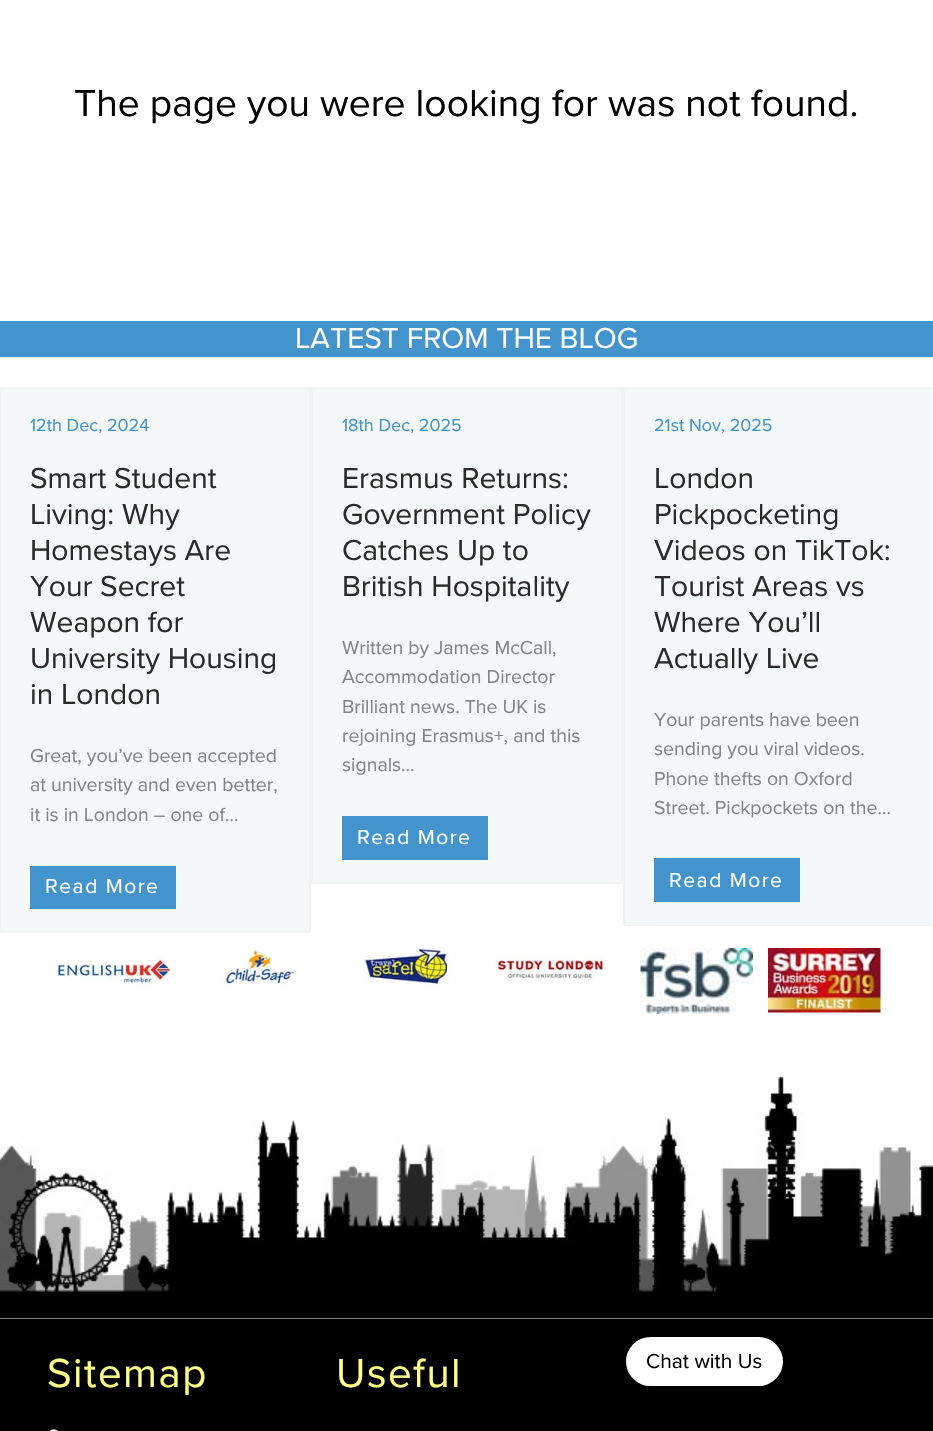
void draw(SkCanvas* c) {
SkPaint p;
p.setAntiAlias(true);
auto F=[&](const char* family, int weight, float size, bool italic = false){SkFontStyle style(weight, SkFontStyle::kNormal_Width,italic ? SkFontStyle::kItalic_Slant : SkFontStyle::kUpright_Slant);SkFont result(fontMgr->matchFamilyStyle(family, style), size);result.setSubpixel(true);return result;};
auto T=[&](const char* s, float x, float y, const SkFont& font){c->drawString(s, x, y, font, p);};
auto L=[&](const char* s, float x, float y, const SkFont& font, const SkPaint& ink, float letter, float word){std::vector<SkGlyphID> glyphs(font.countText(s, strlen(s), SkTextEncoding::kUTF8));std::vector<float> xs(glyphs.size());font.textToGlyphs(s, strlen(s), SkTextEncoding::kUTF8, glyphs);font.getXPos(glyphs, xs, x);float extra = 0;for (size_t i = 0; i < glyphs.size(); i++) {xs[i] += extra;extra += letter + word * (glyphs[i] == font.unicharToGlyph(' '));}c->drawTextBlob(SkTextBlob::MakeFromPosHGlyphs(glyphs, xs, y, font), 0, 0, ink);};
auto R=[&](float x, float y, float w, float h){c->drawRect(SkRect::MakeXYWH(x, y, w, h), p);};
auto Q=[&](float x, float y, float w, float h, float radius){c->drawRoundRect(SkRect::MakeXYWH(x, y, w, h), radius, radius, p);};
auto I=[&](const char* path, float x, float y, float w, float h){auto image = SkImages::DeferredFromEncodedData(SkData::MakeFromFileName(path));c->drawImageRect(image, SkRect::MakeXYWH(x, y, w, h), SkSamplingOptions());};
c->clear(0xffffffff);
auto f1 = F("Proxima Nova",400,39);
p.setColor(0xff000000);
T("The page you were looking for was not found.",74,116,f1);
p.setColor(0xff4393cd);
R(0,321,933,36);
auto f2 = F("Proxima Nova",400,30);
p.setColor(0xffffffff);
T("LATEST FROM THE BLOG",295,348,f2);
p.setColor(0xfff5f8f9);
c->drawRect(SkRect::MakeXYWH(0,388,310,544),p);
p.setStroke(true);
p.setStrokeWidth(2);
p.setColor(0xfff2f2f2);
c->drawRect(SkRect::MakeXYWH(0,388,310,544),p);
auto f3 = F("Proxima Nova",400,18);
p.setStroke(false);
p.setColor(0xff4393cd);
T("12th Dec, 2024",30,431,f3);
p.setColor(0xff2a2a2a);
T("Smart Student",30,488,f2);
T("Living: Why",30,524,f2);
T("Homestays Are",30,560,f2);
T("Your Secret",30,596,f2);
T("Weapon for",30,632,f2);
T("University Housing",30,668,f2);
T("in London",30,704,f2);
auto f4 = F("Proxima Nova",400,19.5);
p.setColor(0xff808587);
T("Great, you’ve been accepted",30,762,f4);
T("at university and even better,",30,791,f4);
T("it is in London – one of…",30,821,f4);
p.setColor(0xff4393cd);
R(30,866,146,43);
auto f5 = F("Proxima Nova",400,21);
p.setColor(0xffffffff);
L("Read More",45,893,f5,p,1.5,0);
p.setColor(0xfff5f8f9);
c->drawRect(SkRect::MakeXYWH(312,388,310,495),p);
p.setStroke(true);
p.setColor(0xfff2f2f2);
c->drawRect(SkRect::MakeXYWH(312,388,310,495),p);
p.setStroke(false);
p.setColor(0xff4393cd);
T("18th Dec, 2025",342,431,f3);
p.setColor(0xff2a2a2a);
T("Erasmus Returns:",342,488,f2);
T("Government Policy",342,524,f2);
T("Catches Up to",342,560,f2);
T("British Hospitality",342,596,f2);
p.setColor(0xff808587);
T("Written by James McCall,",342,654,f4);
T("Accommodation Director",342,683,f4);
T("Brilliant news. The UK is",342,713,f4);
T("rejoining Erasmus+, and this",342,742,f4);
T("signals…",342,771,f4);
p.setColor(0xff4393cd);
R(342,816,146,44);
p.setColor(0xffffffff);
L("Read More",357,844,f5,p,1.5,0);
p.setColor(0xfff5f8f9);
c->drawRect(SkRect::MakeXYWH(624,388,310,537),p);
p.setStroke(true);
p.setColor(0xfff2f2f2);
c->drawRect(SkRect::MakeXYWH(624,388,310,537),p);
p.setStroke(false);
p.setColor(0xff4393cd);
T("21st Nov, 2025",654,431,f3);
p.setColor(0xff2a2a2a);
T("London",654,488,f2);
T("Pickpocketing",654,524,f2);
T("Videos on TikTok:",654,560,f2);
T("Tourist Areas vs",654,596,f2);
T("Where You’ll",654,632,f2);
T("Actually Live",654,668,f2);
p.setColor(0xff808587);
T("Your parents have been",654,726,f4);
T("sending you viral videos.",654,755,f4);
T("Phone thefts on Oxford",654,785,f4);
T("Street. Pickpockets on the…",654,814,f4);
p.setColor(0xff4393cd);
R(654,858,146,44);
p.setColor(0xffffffff);
L("Read More",669,887,f5,p,1.5,0);
I("1.png",58,956,113,30);
I("2.png",217,948,81,38);
I("3.png",362,948,95,38);
I("4.png",495,955,110,26);
I("5.png",640,948,113,66);
I("6.png",768,948,113,65);
I("7.png",0,1076,933,243);
p.setColor(0xff000000);
R(0,1319,933,112);
auto f6 = F("Proxima Nova",400,42);
p.setColor(0xfffeff85);
L("Sitemap",47,1387,f6,p,1.5,0);
I("8.png",50,1429,8,2);
L("Useful",336,1387,f6,p,1.5,0);
p.setColor(0xffffffff);
Q(626,1337,157,49,24.5);
p.setColor(0xff000000);
T("Chat with Us",646,1368,f5);
}
